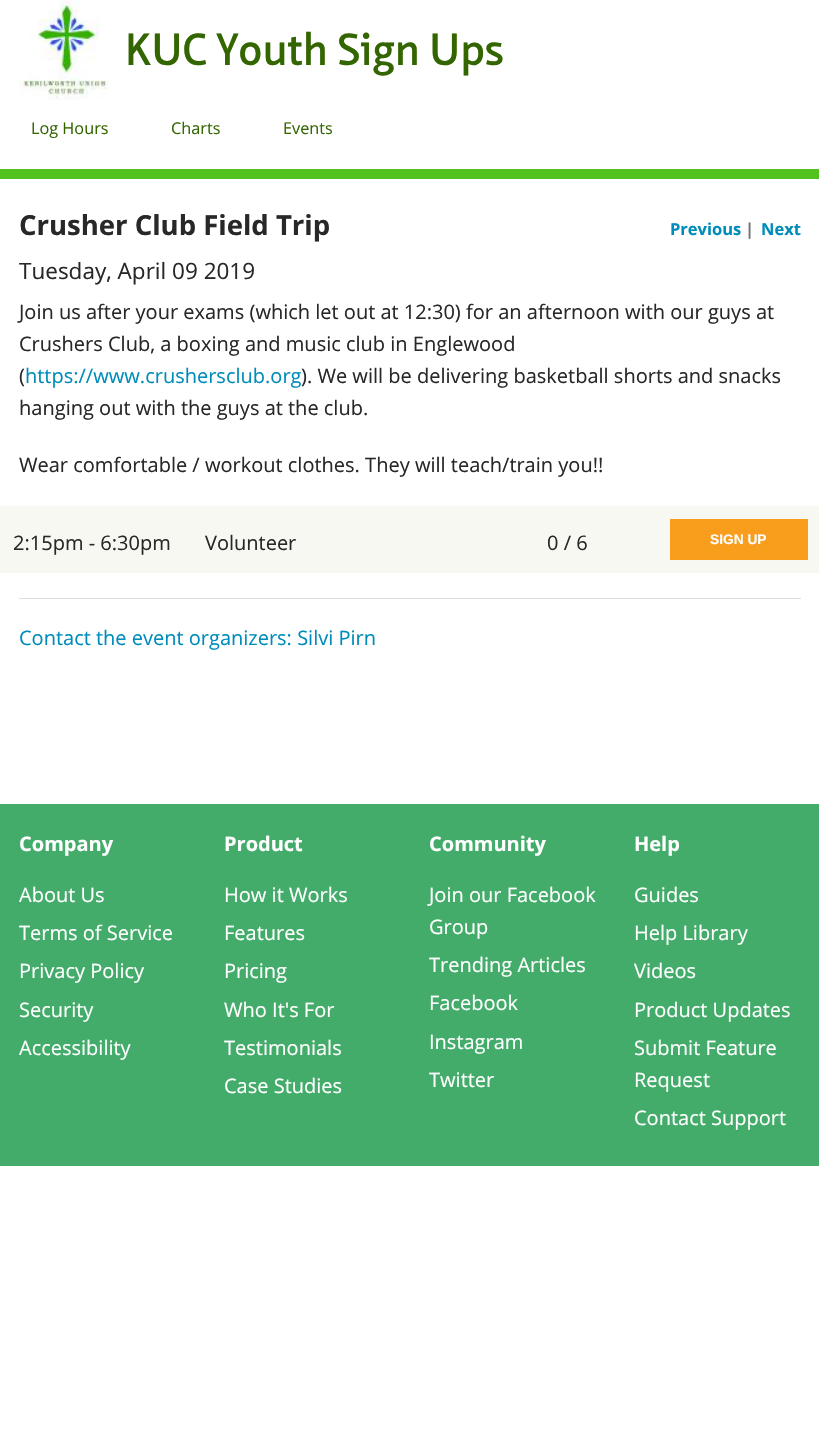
void draw(SkCanvas* c) {
SkPaint p;
p.setAntiAlias(true);
auto F=[&](const char* family, int weight, float size, bool italic = false){SkFontStyle style(weight, SkFontStyle::kNormal_Width,italic ? SkFontStyle::kItalic_Slant : SkFontStyle::kUpright_Slant);SkFont result(fontMgr->matchFamilyStyle(family, style), size);result.setSubpixel(true);return result;};
auto T=[&](const char* s, float x, float y, const SkFont& font){c->drawString(s, x, y, font, p);};
auto R=[&](float x, float y, float w, float h){c->drawRect(SkRect::MakeXYWH(x, y, w, h), p);};
auto I=[&](const char* path, float x, float y, float w, float h){auto image = SkImages::DeferredFromEncodedData(SkData::MakeFromFileName(path));c->drawImageRect(image, SkRect::MakeXYWH(x, y, w, h), SkSamplingOptions());};
c->clear(0xffffffff);
I("1.png",19,0,90,100);
auto f1 = F("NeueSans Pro",600,43.75);
p.setColor(0xff336600);
T("KUC Youth Sign Ups",125,65,f1);
auto f2 = F("Open Sans",400,16.25);
T("Log Hours",31,134,f2);
T("Charts",171,134,f2);
T("Events",283,134,f2);
p.setColor(0xff51c21e);
R(0,169,819,10);
auto f3 = F("Open Sans",700,27.5);
p.setColor(0xff282828);
T("Crusher Club Field Trip",19,235,f3);
auto f4 = F("Open Sans",700,16.5);
p.setColor(0xff008cba);
T("Previous",670,235,f4);
p.setColor(0xff6f6f6f);
T("|",745,235,f4);
p.setColor(0xff008cba);
T("Next",761,235,f4);
auto f5 = F("Open Sans",400,22.5);
p.setColor(0xff282828);
T("Tuesday, April 09 2019",19,279,f5);
auto f6 = F("Open Sans",400,20);
T("Join us after your exams (which let out at 12:30) for an afternoon with our guys at",19,319,f6);
T("Crushers Club, a boxing and music club in Englewood",19,351,f6);
T("(",19,383,f6);
p.setColor(0xff008cba);
T("https://www.crushersclub.org",25,383,f6);
p.setColor(0xff282828);
T("). We will be delivering basketball shorts and snacks",301,383,f6);
T("hanging out with the guys at the club.",19,415,f6);
T("Wear comfortable / workout clothes. They will teach/train you!!",19,472,f6);
p.setColor(0xfff8f8f2);
R(0,506,819,67);
p.setColor(0xff282828);
T("2:15pm - 6:30pm",13,550,f6);
T("Volunteer",205,550,f6);
T("0 / 6",547,550,f6);
p.setColor(0xfff99d1c);
R(670,519,138,41);
auto f7 = F("Liberation Sans",700,13.75);
p.setColor(0xffffffff);
T("SIGN UP",710,544,f7);
p.setColor(0xffdddddd);
R(19,598,782,1);
p.setColor(0xff008cba);
T("Contact the event organizers: Silvi Pirn",19,645,f6);
p.setColor(0xff43ac6a);
R(0,804,819,362);
auto f8 = F("Open Sans",700,20);
p.setColor(0xffffffff);
T("Company",19,851,f8);
T("About Us",19,902,f6);
T("Terms of Service",19,940,f6);
T("Privacy Policy",19,978,f6);
T("Security",19,1017,f6);
T("Accessibility",19,1055,f6);
T("Product",224,851,f8);
T("How it Works",224,902,f6);
T("Features",224,940,f6);
T("Pricing",224,978,f6);
T("Who It's For",224,1017,f6);
T("Testimonials",224,1055,f6);
T("Case Studies",224,1093,f6);
T("Community",429,851,f8);
T("Join our Facebook",429,902,f6);
T("Group",429,934,f6);
T("Trending Articles",429,972,f6);
T("Facebook",429,1010,f6);
T("Instagram",429,1049,f6);
T("Twitter",429,1087,f6);
T("Help",634,851,f8);
T("Guides",634,902,f6);
T("Help Library",634,940,f6);
T("Videos",634,978,f6);
T("Product Updates",634,1017,f6);
T("Submit Feature",634,1055,f6);
T("Request",634,1087,f6);
T("Contact Support",634,1125,f6);
}
